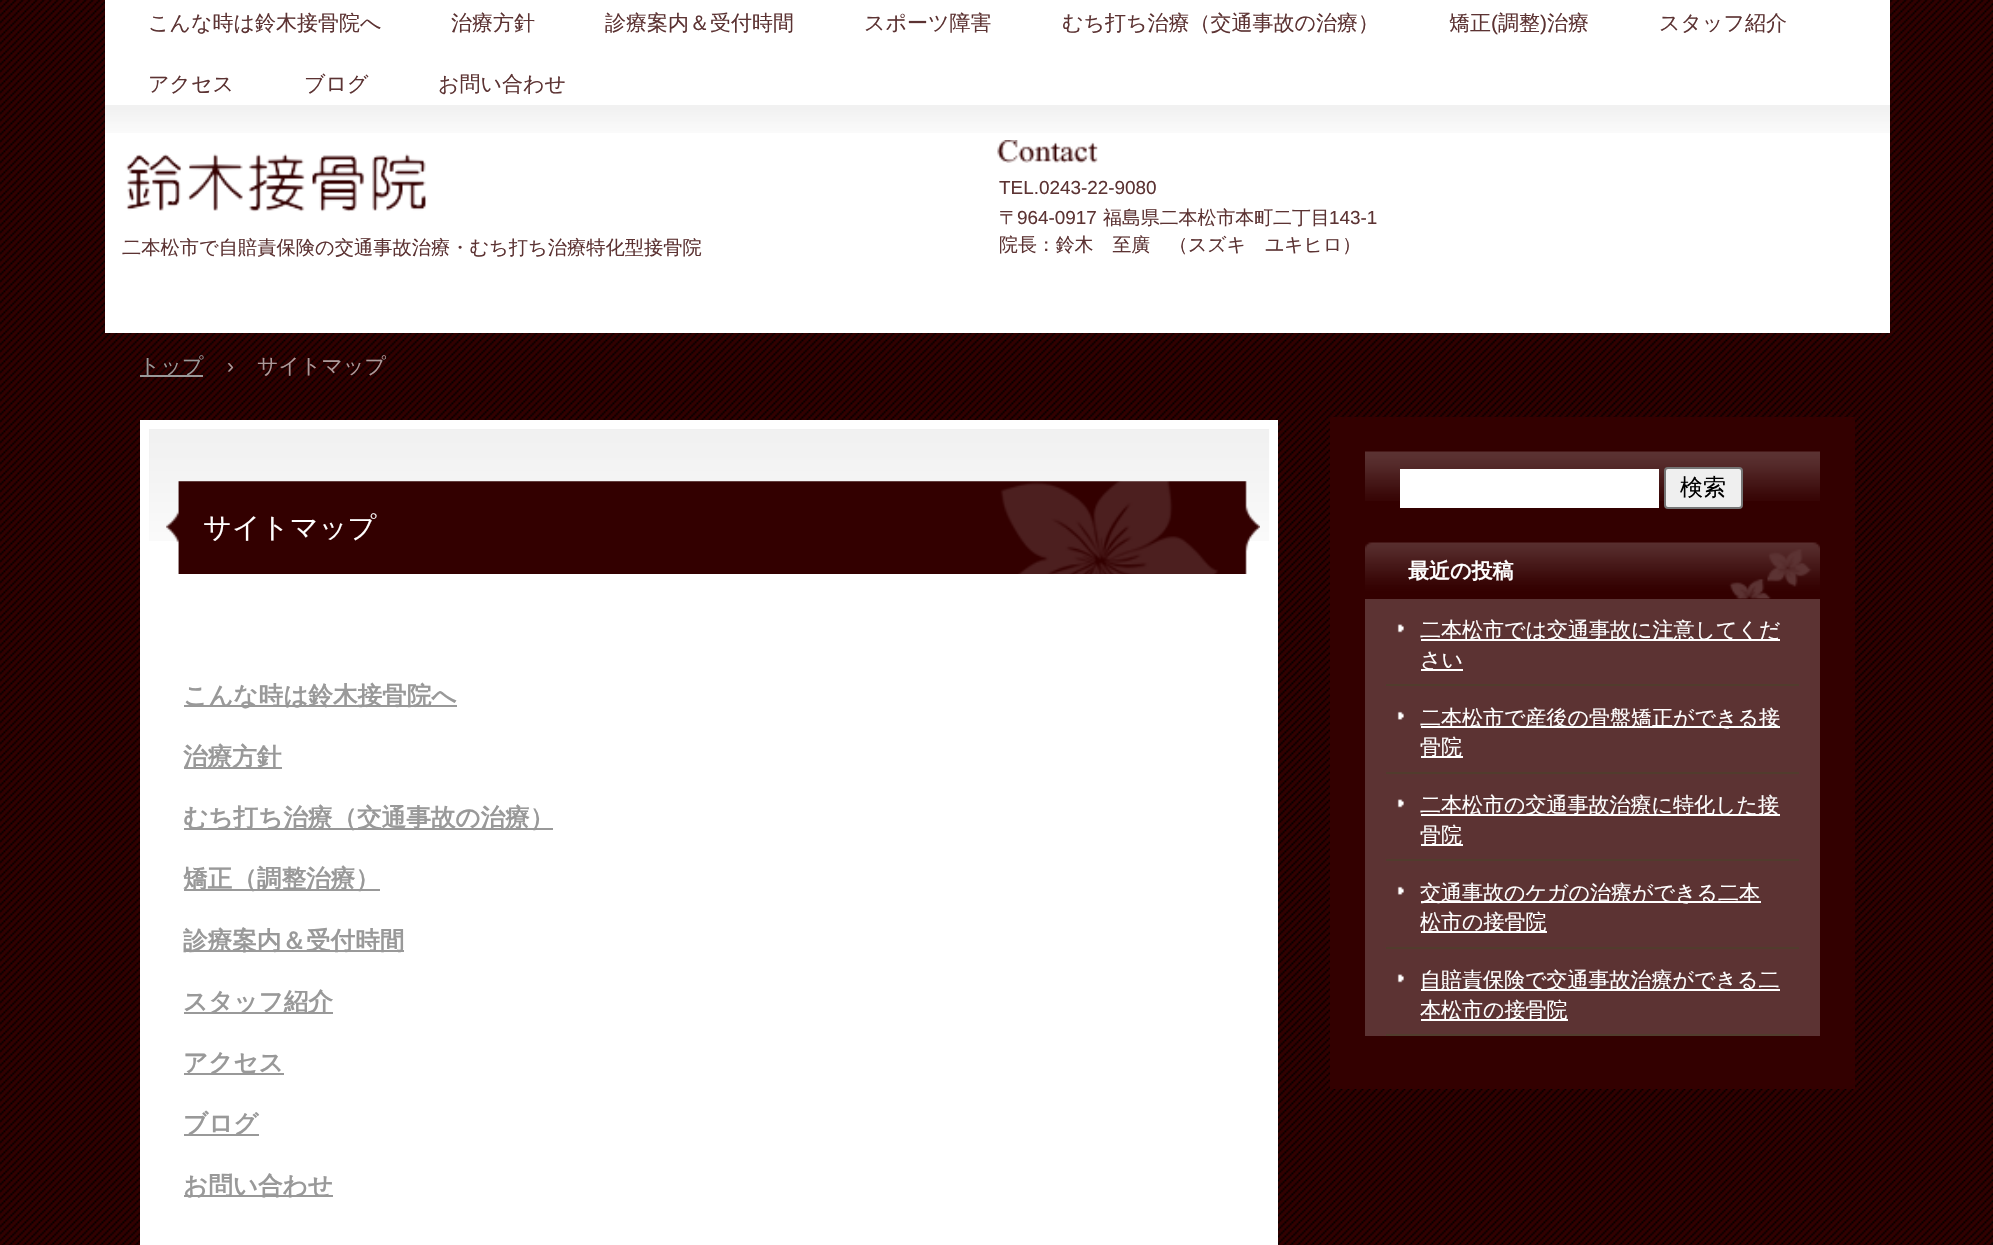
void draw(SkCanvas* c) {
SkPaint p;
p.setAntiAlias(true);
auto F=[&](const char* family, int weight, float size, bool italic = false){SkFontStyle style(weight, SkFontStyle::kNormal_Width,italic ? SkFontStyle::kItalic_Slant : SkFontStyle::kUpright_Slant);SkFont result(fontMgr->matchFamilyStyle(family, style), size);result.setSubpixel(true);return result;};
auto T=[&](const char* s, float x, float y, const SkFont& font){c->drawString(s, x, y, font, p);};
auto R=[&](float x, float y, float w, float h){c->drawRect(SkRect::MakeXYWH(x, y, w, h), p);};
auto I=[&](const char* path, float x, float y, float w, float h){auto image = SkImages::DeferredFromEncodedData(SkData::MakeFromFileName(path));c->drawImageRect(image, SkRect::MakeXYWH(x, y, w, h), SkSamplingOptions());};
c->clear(0xffffffff);
I("1.png",0,0,1993,1245);
p.setColor(0xffffffff);
R(105,0,1785,333);
I("2.png",105,105,1785,28);
auto f1 = F("WenQuanYi Zen Hei",500,21);
p.setColor(0xff5c3333);
T("こんな時は鈴木接骨院へ",148,30,f1);
T("治療方針",451,30,f1);
T("診療案内＆受付時間",605,30,f1);
T("スポーツ障害",864,30,f1);
T("むち打ち治療（交通事故の治療）",1062,30,f1);
T("矯正",1449,30,f1);
auto f2 = F("Liberation Sans",400,21);
T("(",1491,30,f2);
T("調整",1498,30,f1);
T(")",1540,30,f2);
T("治療",1547,30,f1);
T("スタッフ紹介",1659,30,f1);
T("アクセス",148,91,f1);
T("ブログ",304,91,f1);
T("お問い合わせ",438,91,f1);
I("3.png",125,153,302,59);
auto f3 = F("WenQuanYi Zen Hei",500,19.25);
T("二本松市で自賠責保険の交通事故治療・むち打ち治療特化型接骨院",122,254,f3);
I("4.png",997,140,101,23);
auto f4 = F("Liberation Sans",400,18.9);
T("TEL.0243-22-9080",999,194,f4);
auto f5 = F("WenQuanYi Zen Hei",500,18.9);
T("〒",999,224,f5);
T("964-0917",1017,224,f4);
T("福島県二本松市本町二丁目",1103,224,f5);
T("143-1",1329,224,f4);
T("院長：鈴木　至廣　（スズキ　ユキヒロ）",999,251,f5);
p.setColor(0xff999999);
R(140,375,63,2);
T("トップ",139,373,f1);
p.setColor(0xffac9999);
T("›",227,373,f2);
T("サイトマップ",257,373,f1);
p.setColor(0xffffffff);
R(149,541,1120,704);
I("5.png",149,429,1120,112);
p.setStroke(true);
p.setStrokeWidth(9);
c->drawRect(SkRect::MakeXYWH(144.5,424.5,1129,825),p);
I("6.png",166,481,1094,93);
auto f6 = F("WenQuanYi Zen Hei",500,28.25);
p.setStroke(false);
T("サイトマップ",203,537,f6);
p.setColor(0xff999999);
R(184,705,273,2);
auto f7 = F("WenQuanYi Zen Hei",700,24.6);
T("こんな時は鈴木接骨院へ",183,704,f7);
R(184,767,98,2);
T("治療方針",183,765,f7);
R(184,828,369,2);
T("むち打ち治療（交通事故の治療）",183,826,f7);
R(184,889,196,2);
T("矯正（調整治療）",183,887,f7);
R(184,950,220,2);
T("診療案内＆受付時間",183,949,f7);
R(184,1012,149,2);
T("スタッフ紹介",183,1010,f7);
R(184,1073,100,2);
T("アクセス",183,1071,f7);
R(184,1134,75,2);
T("ブログ",183,1132,f7);
R(184,1195,149,2);
T("お問い合わせ",183,1194,f7);
p.setColor(0xff330000);
R(1330,417,525,672);
I("7.png",1365,451,455,50);
p.setColor(0xffffffff);
R(1400,469,259,39);
p.setColor(0xffefefef);
c->drawRoundRect(SkRect::MakeXYWH(1665,468,77,40),3,3,p);
p.setStroke(true);
p.setStrokeWidth(2);
p.setColor(0xff767676);
c->drawRoundRect(SkRect::MakeXYWH(1665,468,77,40),3,3,p);
auto f8 = F("WenQuanYi Zen Hei",500,23);
p.setStroke(false);
p.setColor(0xff000000);
T("検索",1680,495,f8);
I("8.png",1365,542,455,57);
auto f9 = F("WenQuanYi Zen Hei",700,21);
p.setColor(0xffffffff);
T("最近の投稿",1408,578,f9);
p.setColor(0xff5c3333);
R(1365,599,455,437);
I("9.png",1397,624,7,9);
p.setColor(0xff513c2d);
R(1386,684,413,2);
p.setColor(0xffffffff);
R(1421,639,359,2);
T("二本松市では交通事故に注意してくだ",1420,637,f1);
R(1421,669,42,2);
T("さい",1420,667,f1);
I("10.png",1397,711,7,9);
p.setColor(0xff513c2d);
R(1386,772,413,2);
p.setColor(0xffffffff);
R(1421,726,359,2);
T("二本松市で産後の骨盤矯正ができる接",1420,725,f1);
R(1421,756,42,2);
T("骨院",1420,754,f1);
I("9.png",1397,799,7,9);
p.setColor(0xff513c2d);
R(1386,859,413,2);
p.setColor(0xffffffff);
R(1421,814,359,2);
T("二本松市の交通事故治療に特化した接",1420,812,f1);
R(1421,844,42,2);
T("骨院",1420,842,f1);
I("10.png",1397,886,7,9);
p.setColor(0xff513c2d);
R(1386,947,413,2);
p.setColor(0xffffffff);
R(1421,901,340,2);
T("交通事故のケガの治療ができる二本",1420,900,f1);
R(1421,931,126,2);
T("松市の接骨院",1420,929,f1);
I("9.png",1397,974,7,9);
p.setColor(0xff513c2d);
R(1386,1034,413,2);
p.setColor(0xffffffff);
R(1421,989,359,2);
T("自賠責保険で交通事故治療ができる二",1420,987,f1);
R(1421,1019,147,2);
T("本松市の接骨院",1420,1017,f1);
}
